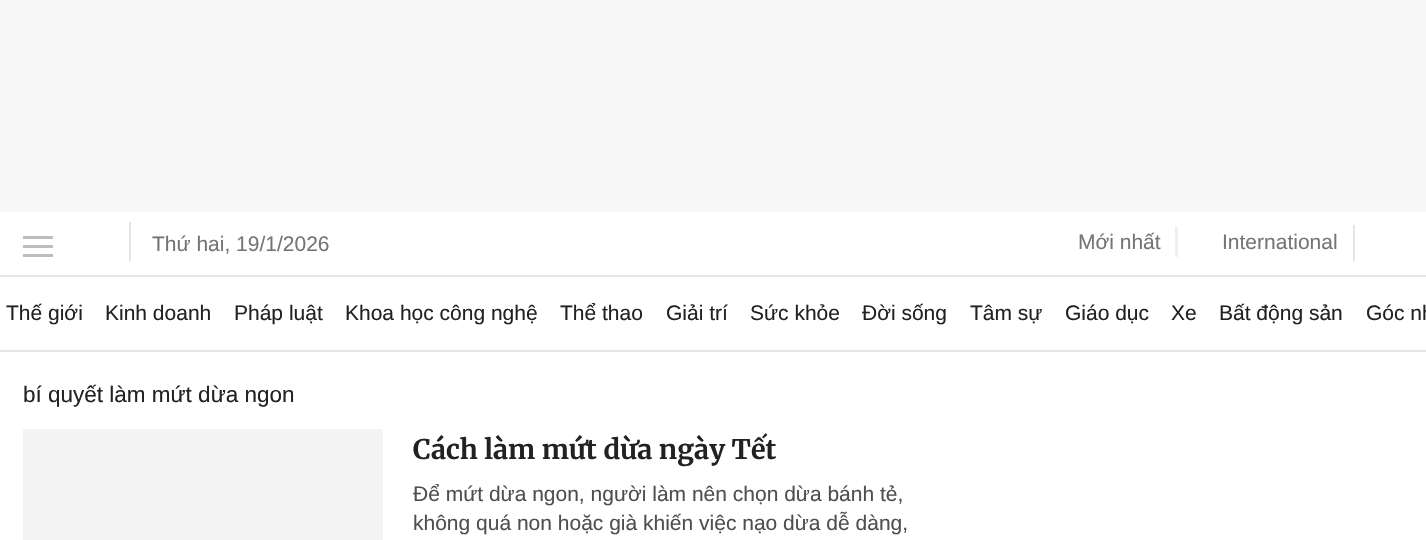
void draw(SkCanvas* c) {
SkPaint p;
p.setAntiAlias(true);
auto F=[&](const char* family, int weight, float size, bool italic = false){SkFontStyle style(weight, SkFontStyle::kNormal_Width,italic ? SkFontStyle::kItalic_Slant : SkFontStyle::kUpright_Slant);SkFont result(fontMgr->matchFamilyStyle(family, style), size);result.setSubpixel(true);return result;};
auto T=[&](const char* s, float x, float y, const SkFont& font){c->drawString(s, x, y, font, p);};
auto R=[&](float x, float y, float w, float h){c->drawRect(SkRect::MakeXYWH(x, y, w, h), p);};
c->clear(0xffffffff);
p.setColor(0xfff7f7f7);
R(0,0,1426,212);
p.setColor(0xffe5e5e5);
R(0,275,1426,2);
p.setColor(0xffbdbdbd);
R(23,236,30,3);
R(23,245,30,3);
R(23,254,30,3);
p.setColor(0xffe5e5e5);
R(129,222,2,39);
auto f1 = F("Liberation Sans",400,21);
p.setColor(0xff757575);
T("Thứ hai, 19/1/2026",152,251,f1);
T("Mới nhất",1078,249,f1);
p.setColor(0xffefefef);
R(1175,227,3,30);
p.setColor(0xff757575);
T("International",1222,249,f1);
p.setColor(0xffe5e5e5);
R(1353,225,2,36);
R(0,350,1426,2);
p.setColor(0xff222222);
T("Thế giới",6,320,f1);
T("Kinh doanh",105,320,f1);
T("Pháp luật",234,320,f1);
T("Khoa học công nghệ",345,320,f1);
T("Thể thao",560,320,f1);
T("Giải trí",666,320,f1);
T("Sức khỏe",750,320,f1);
T("Đời sống",862,320,f1);
T("Tâm sự",970,320,f1);
T("Giáo dục",1065,320,f1);
T("Xe",1171,320,f1);
T("Bất động sản",1219,320,f1);
T("Góc nh",1366,320,f1);
auto f2 = F("Liberation Sans",400,22.5);
T("bí quyết làm mứt dừa ngon",23,402,f2);
p.setColor(0xfff4f4f4);
R(23,429,360,111);
auto f3 = F("Merriweather",700,27);
p.setColor(0xff222222);
T("Cách làm mứt dừa ngày Tết",413,459,f3);
p.setColor(0xff4f4f4f);
T("Để mứt dừa ngon, người làm nên chọn dừa bánh tẻ,",413,501,f1);
T("không quá non hoặc già khiến việc nạo dừa dễ dàng,",413,530,f1);
}
